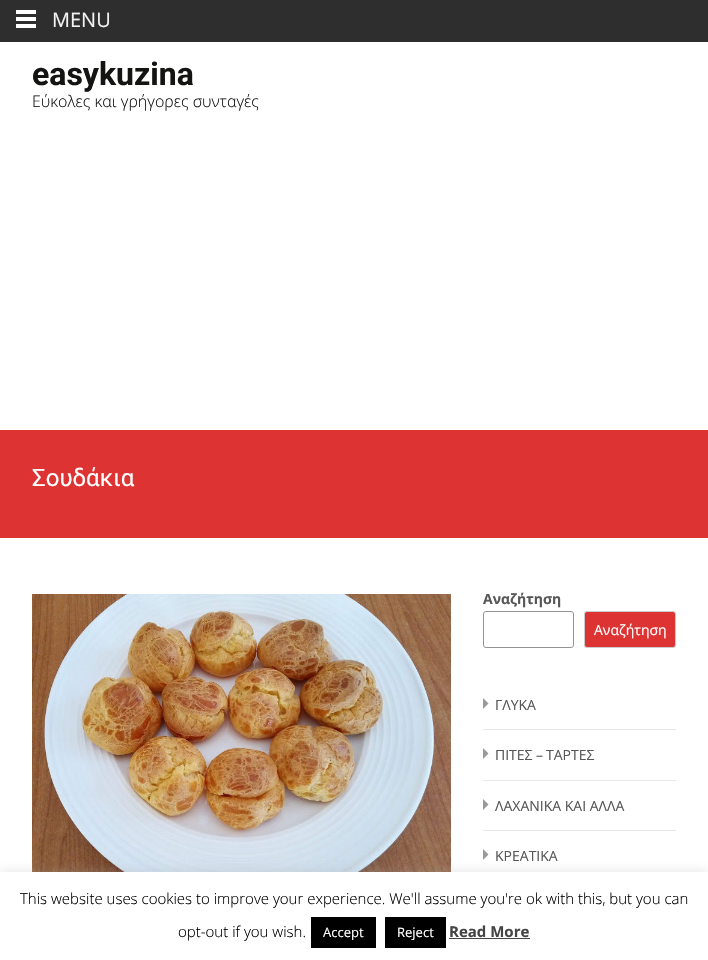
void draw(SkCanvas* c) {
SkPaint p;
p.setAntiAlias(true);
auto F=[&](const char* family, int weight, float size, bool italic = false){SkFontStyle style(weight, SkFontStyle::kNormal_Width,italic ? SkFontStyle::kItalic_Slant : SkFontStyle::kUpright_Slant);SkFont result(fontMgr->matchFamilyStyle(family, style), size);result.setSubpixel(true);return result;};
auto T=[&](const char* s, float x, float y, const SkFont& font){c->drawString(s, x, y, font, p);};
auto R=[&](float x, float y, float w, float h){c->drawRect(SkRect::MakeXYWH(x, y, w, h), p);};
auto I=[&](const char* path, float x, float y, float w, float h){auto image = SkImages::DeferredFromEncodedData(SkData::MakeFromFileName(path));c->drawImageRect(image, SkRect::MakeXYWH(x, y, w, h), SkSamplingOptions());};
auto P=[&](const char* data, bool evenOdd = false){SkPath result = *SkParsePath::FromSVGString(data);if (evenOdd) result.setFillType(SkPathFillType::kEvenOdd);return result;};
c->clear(0xffffffff);
p.setColor(0xff2e2e2e);
R(0,0,708,42);
p.setColor(0xffffffff);
R(16,10,20,4);
R(16,17,20,4);
R(16,24,20,4);
auto f1 = F("Open Sans",400,20);
p.setColor(0xfff2f2f2);
T("MENU",52,27,f1);
auto f2 = F("Roboto",700,32);
p.setColor(0xff141412);
T("easykuzina",32,85,f2);
auto f3 = F("Open Sans",300,16);
T("Εύκολες και γρήγορες συνταγές",32,107,f3);
p.setColor(0xffdd3333);
R(0,430,708,108);
auto f4 = F("Roboto",400,24);
p.setColor(0xffffffff);
T("Σουδάκια",32,486,f4);
I("1.png",32,594,419,278);
auto f5 = F("Open Sans",700,14);
p.setColor(0xff575757);
T("Αναζήτηση",483,604,f5);
p.setStroke(true);
p.setStrokeWidth(1);
p.setColor(0xff949494);
c->drawRoundRect(SkRect::MakeXYWH(483.5,611.5,90,36),2.5,2.5,p);
p.setStroke(false);
p.setColor(0xffdd3333);
c->drawRoundRect(SkRect::MakeXYWH(584.5,611.5,91,36),2.5,2.5,p);
p.setStroke(true);
p.setColor(0xffcccccc);
c->drawRoundRect(SkRect::MakeXYWH(584.5,611.5,91,36),2.5,2.5,p);
auto f6 = F("Open Sans",400,14);
p.setStroke(false);
p.setColor(0xffffffff);
T("Αναζήτηση",594,635,f6);
p.setColor(0xffe7e7e7);
R(483,729,193,1);
p.setColor(0xff999999);
c->drawPath(P("M483 709l5.5-5.5l-5.5-5.5z"),p);
p.setColor(0xff575757);
T("ΓΛΥΚΑ",495,710,f6);
p.setColor(0xffe7e7e7);
R(483,780,193,1);
p.setColor(0xff999999);
c->drawPath(P("M483 759l5.5-5.5l-5.5-5.5z"),p);
p.setColor(0xff575757);
T("ΠΙΤΕΣ",495,760,f6);
auto f7 = F("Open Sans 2",400,14);
T("–",536,760,f7);
T("ΤΑΡΤΕΣ",546,760,f6);
p.setColor(0xffe7e7e7);
R(483,830,193,1);
p.setColor(0xff999999);
c->drawPath(P("M483 810l5.5-5.5l-5.5-5.5z"),p);
p.setColor(0xff575757);
T("ΛΑΧΑΝΙΚΑ ΚΑΙ ΑΛΛΑ",495,811,f6);
p.setColor(0xff999999);
c->drawPath(P("M483 860l5.5-5.5l-5.5-5.5z"),p);
p.setColor(0xff575757);
T("ΚΡΕΑΤΙΚΑ",495,861,f6);
p.setColor(0x4dacabab);
p.setMaskFilter(SkMaskFilter::MakeBlur(kNormal_SkBlurStyle, 5));
c->drawRect(SkRect::MakeXYWH(0,871,708,88),p);
p.setMaskFilter(nullptr);
p.setColor(0xffffffff);
R(0,872,708,88);
auto f8 = F("Open Sans",300,15);
p.setColor(0xff000000);
T("This website uses cookies to improve your experience. We'll assume you're ok with this, but you can",20,904,f8);
T("opt-out if you wish.",178,937,f8);
R(311,917,65,31);
auto f9 = F("Open Sans",400,13);
p.setColor(0xffffffff);
T("Accept",323,937,f9);
p.setColor(0xff000000);
R(385,917,61,31);
p.setColor(0xffffffff);
T("Reject",397,937,f9);
auto f10 = F("Open Sans",700,15);
p.setColor(0xff444444);
T("Read More",449,937,f10);
R(449,938,81,1);
}
